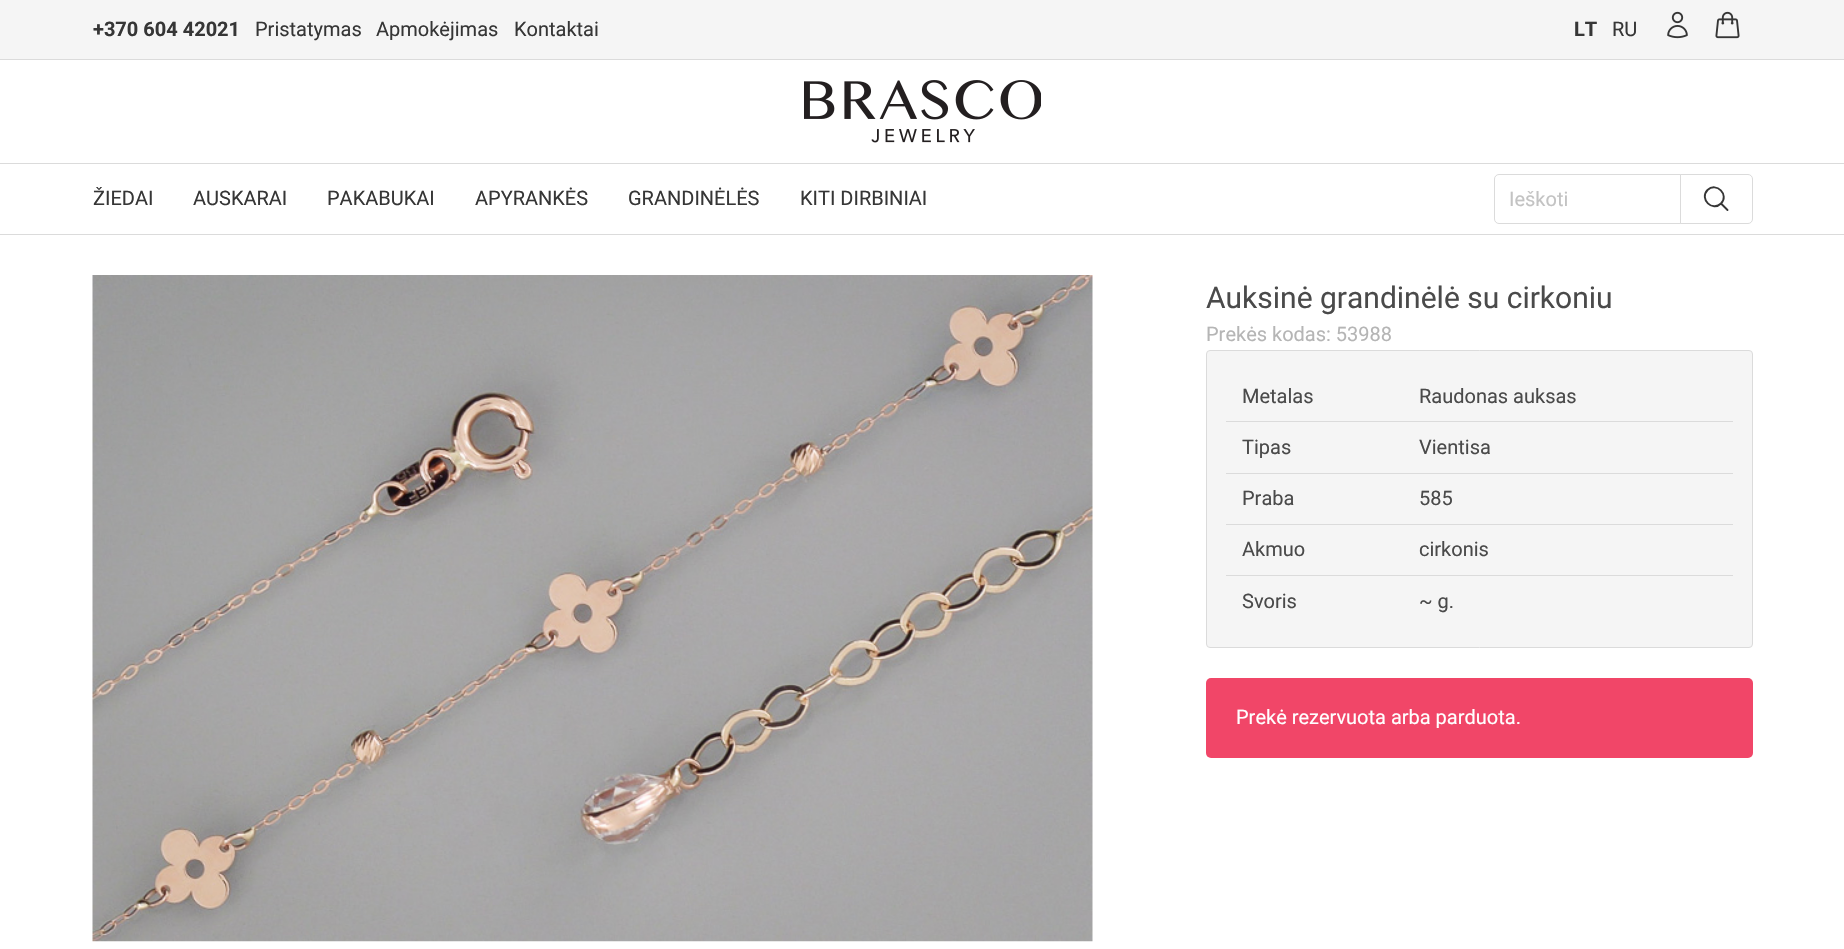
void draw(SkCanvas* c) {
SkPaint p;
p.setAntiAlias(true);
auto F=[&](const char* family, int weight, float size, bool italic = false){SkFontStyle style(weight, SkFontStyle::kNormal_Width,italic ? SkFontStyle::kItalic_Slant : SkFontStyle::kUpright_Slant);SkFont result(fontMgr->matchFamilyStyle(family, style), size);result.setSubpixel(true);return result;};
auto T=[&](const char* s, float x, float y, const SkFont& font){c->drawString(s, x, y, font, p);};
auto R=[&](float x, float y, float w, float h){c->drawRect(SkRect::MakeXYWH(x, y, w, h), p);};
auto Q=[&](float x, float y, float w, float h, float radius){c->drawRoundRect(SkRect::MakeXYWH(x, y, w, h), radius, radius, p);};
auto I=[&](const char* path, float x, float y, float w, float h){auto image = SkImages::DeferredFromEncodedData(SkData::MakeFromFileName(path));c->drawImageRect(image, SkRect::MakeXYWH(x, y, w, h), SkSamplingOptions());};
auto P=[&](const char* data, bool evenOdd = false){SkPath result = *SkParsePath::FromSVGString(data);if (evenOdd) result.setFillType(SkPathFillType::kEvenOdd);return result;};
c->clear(0xffffffff);
p.setColor(0xfff5f5f5);
R(0,0,1844,59);
p.setColor(0xffdbdbdb);
R(0,59,1844,1);
auto f1 = F("Roboto",700,20);
p.setColor(0xff363636);
T("+370 604 42021",93,36,f1);
auto f2 = F("Roboto",400,20);
T("Pristatymas",255,36,f2);
T("Apmokėjimas",376,36,f2);
T("Kontaktai",514,36,f2);
T("LT",1574,36,f1);
T("RU",1612,36,f2);
I("1.png",1667,11,21,28);
I("2.png",1715,11,25,28);
I("3.png",804,80,237,63);
p.setColor(0xffdbdbdb);
R(0,163,1844,1);
R(0,234,1844,1);
p.setColor(0xff363636);
T("ŽIEDAI",93,205,f2);
T("AUSKARAI",193,205,f2);
T("PAKABUKAI",327,205,f2);
T("APYRANKĖS",475,205,f2);
T("GRANDINĖLĖS",628,205,f2);
T("KITI DIRBINIAI",800,205,f2);
p.setStroke(true);
p.setStrokeWidth(1);
p.setColor(0xffdbdbdb);
c->drawPath(P("M1499 174.5h181.5v49h-181.5c-2.5 0-4.5-2-4.5-4.5v-40c0-2.5 2-4.5 4.5-4.5z"),p);
p.setStroke(false);
p.setColor(0xffc3c3c3);
T("Ieškoti",1509,206,f2);
p.setColor(0xffffffff);
c->drawPath(P("M1680.5 174.5h67.5c2.5 0 4.5 2 4.5 4.5v40c0 2.5-2 4.5-4.5 4.5h-67.5z"),p);
p.setStroke(true);
p.setColor(0xffdbdbdb);
c->drawPath(P("M1680.5 174.5h67.5c2.5 0 4.5 2 4.5 4.5v40c0 2.5-2 4.5-4.5 4.5h-67.5z"),p);
p.setStrokeWidth(1.9);
p.setStrokeCap(SkPaint::kRound_Cap);
p.setStrokeJoin(SkPaint::kRound_Join);
p.setColor(0xff363636);
c->drawPath(P("M1727.5 210l-6.5-6.5m0 0c8.5-8.5-4.5-22-13.5-13.5c-8.5 9 5 22 13.5 13.5z"),p);
I("4.png",92,275,1001,667);
auto f3 = F("Roboto",400,30);
p.setStroke(false);
p.setColor(0xff4a4a4a);
T("Auksinė grandinėlė su cirkoniu",1206,308,f3);
p.setColor(0xffb5b5b5);
T("Prekės kodas: 53988",1206,341,f2);
p.setColor(0xfff5f5f5);
c->drawRoundRect(SkRect::MakeXYWH(1206.5,350.5,546,297),3.5,3.5,p);
p.setStroke(true);
p.setStrokeWidth(1);
p.setStrokeCap(SkPaint::kButt_Cap);
p.setStrokeJoin(SkPaint::kMiter_Join);
p.setColor(0xffdbdbdb);
c->drawRoundRect(SkRect::MakeXYWH(1206.5,350.5,546,297),3.5,3.5,p);
p.setStroke(false);
p.setColor(0xff4a4a4a);
T("Metalas",1242,403,f2);
p.setColor(0xffdbdbdb);
R(1226,421,507,1);
p.setColor(0xff4a4a4a);
T("Raudonas auksas",1419,403,f2);
T("Tipas",1242,454,f2);
p.setColor(0xffdbdbdb);
R(1226,473,507,1);
p.setColor(0xff4a4a4a);
T("Vientisa",1419,454,f2);
T("Praba",1242,505,f2);
p.setColor(0xffdbdbdb);
R(1226,524,507,1);
p.setColor(0xff4a4a4a);
T("585",1419,505,f2);
T("Akmuo",1242,556,f2);
p.setColor(0xffdbdbdb);
R(1226,575,507,1);
p.setColor(0xff4a4a4a);
T("cirkonis",1419,556,f2);
T("Svoris",1242,608,f2);
T("~ g.",1419,608,f2);
p.setColor(0xfff14668);
Q(1206,678,547,80,5);
p.setColor(0xffffffff);
T("Prekė rezervuota arba parduota.",1236,724,f2);
}
